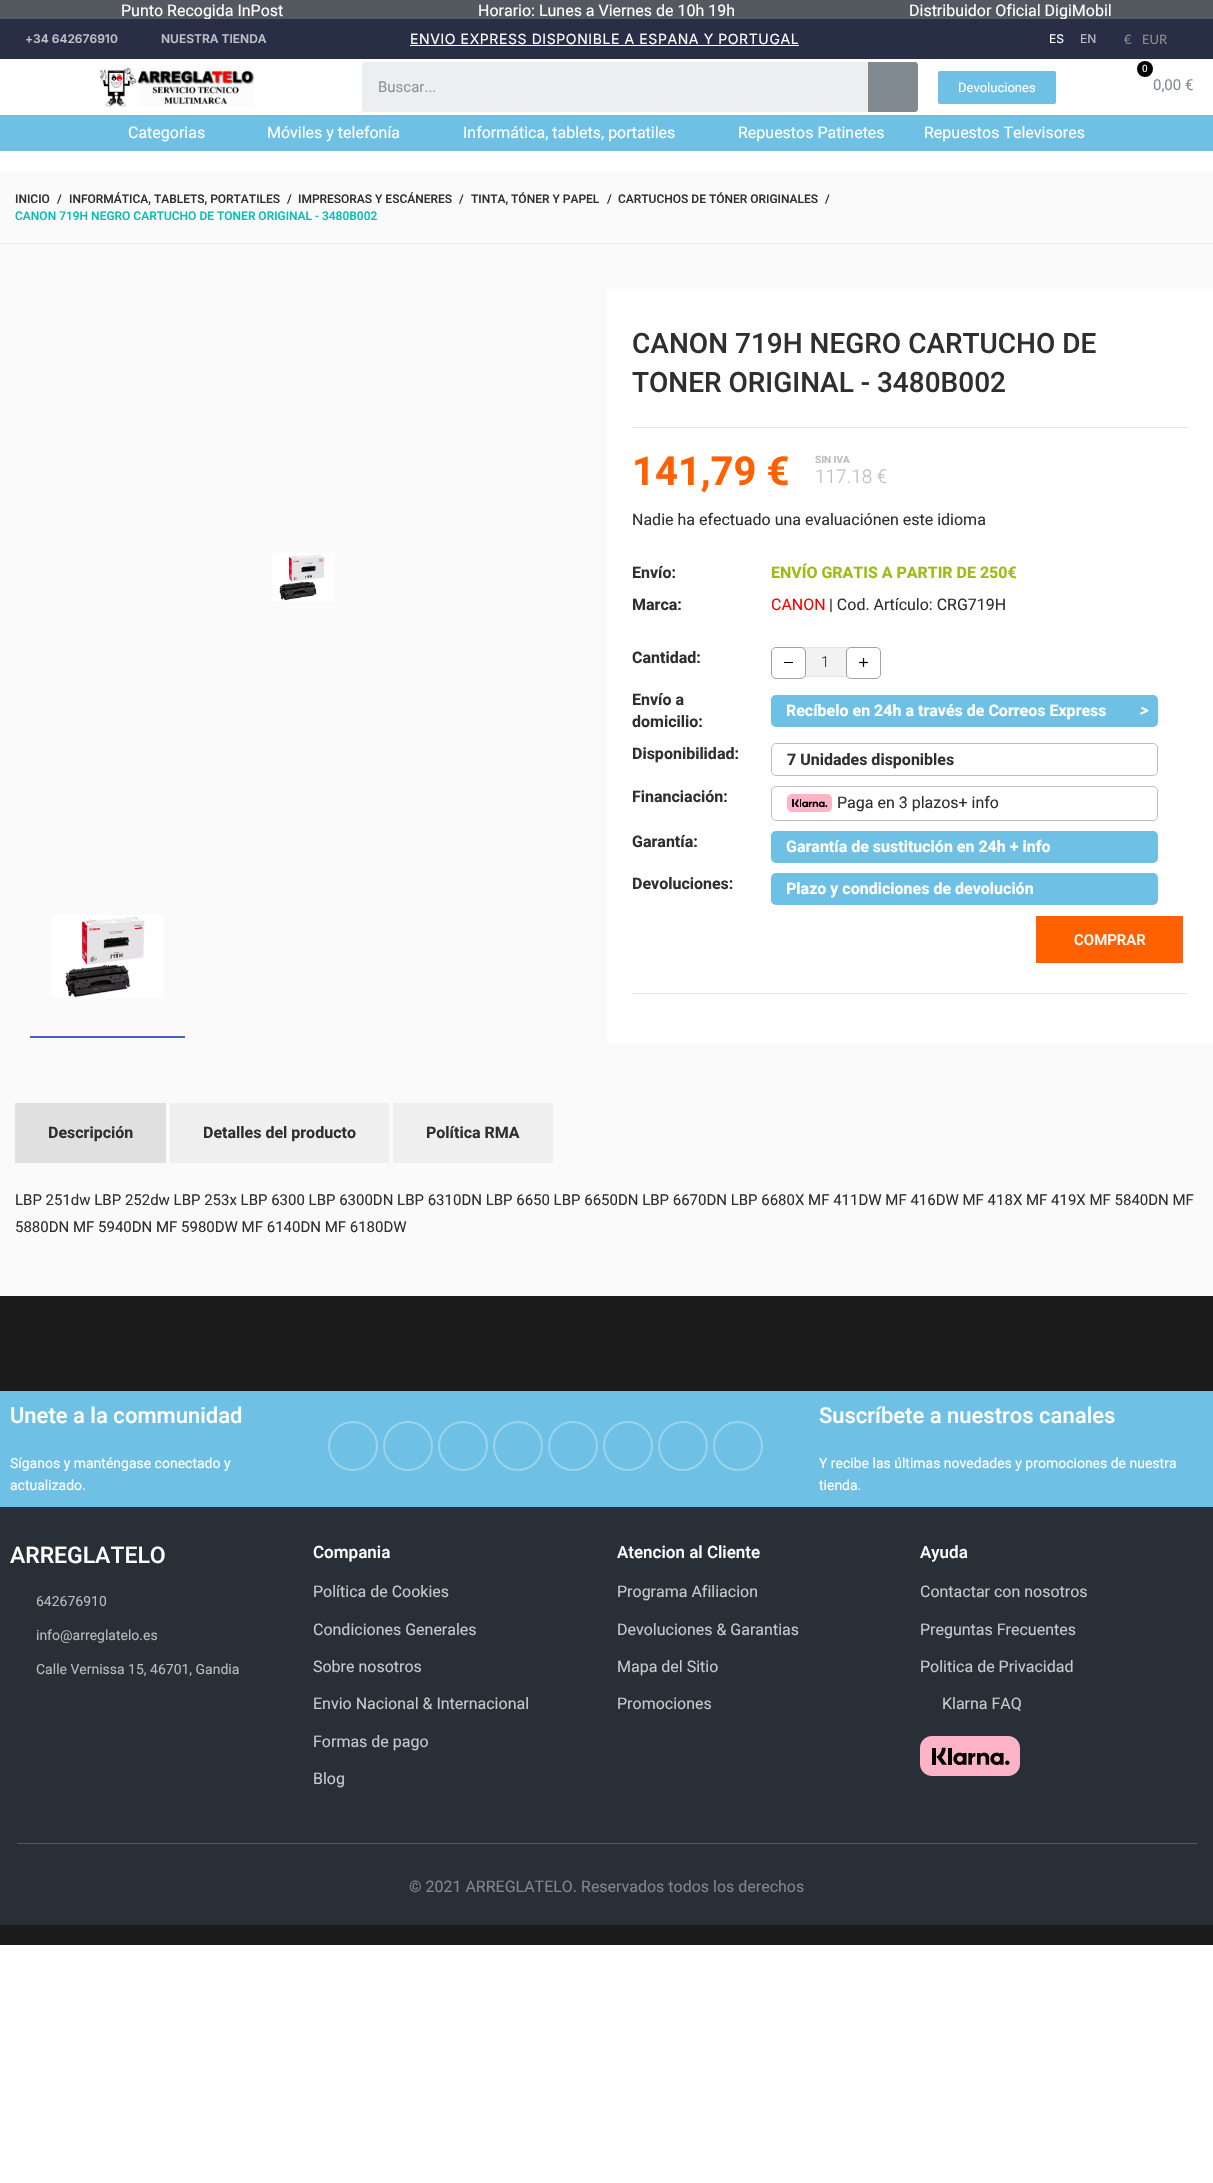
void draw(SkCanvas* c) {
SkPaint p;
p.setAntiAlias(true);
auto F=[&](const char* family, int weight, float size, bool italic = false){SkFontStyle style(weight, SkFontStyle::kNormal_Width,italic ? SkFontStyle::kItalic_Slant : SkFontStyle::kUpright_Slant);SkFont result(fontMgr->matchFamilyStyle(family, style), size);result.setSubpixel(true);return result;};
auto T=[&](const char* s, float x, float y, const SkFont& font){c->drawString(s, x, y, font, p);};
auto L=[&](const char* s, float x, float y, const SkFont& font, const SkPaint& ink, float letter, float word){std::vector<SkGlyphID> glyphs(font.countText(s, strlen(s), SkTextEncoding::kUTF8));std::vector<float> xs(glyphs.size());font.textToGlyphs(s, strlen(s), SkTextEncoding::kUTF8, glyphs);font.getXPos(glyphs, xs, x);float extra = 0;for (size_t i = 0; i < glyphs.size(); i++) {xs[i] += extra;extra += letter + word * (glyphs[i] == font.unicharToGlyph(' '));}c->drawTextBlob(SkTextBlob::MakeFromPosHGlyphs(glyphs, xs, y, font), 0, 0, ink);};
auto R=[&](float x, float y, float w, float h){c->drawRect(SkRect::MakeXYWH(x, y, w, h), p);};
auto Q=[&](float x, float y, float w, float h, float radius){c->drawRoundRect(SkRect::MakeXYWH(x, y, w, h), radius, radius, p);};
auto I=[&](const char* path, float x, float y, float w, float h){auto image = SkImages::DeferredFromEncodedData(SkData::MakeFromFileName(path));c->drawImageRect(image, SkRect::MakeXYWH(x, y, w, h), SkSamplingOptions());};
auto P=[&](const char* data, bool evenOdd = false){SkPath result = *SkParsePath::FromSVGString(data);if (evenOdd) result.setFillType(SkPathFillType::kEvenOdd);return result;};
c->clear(0xffffffff);
p.setColor(0xff54595f);
R(0,0,1213,19);
auto f1 = F("Roboto",400,16);
p.setColor(0xffffffff);
T("Punto Recogida InPost",121,16,f1);
T("Horario: Lunes a Viernes de 10h 19h",478,16,f1);
T("Distribuidor Oficial DigiMobil",909,16,f1);
p.setColor(0xff282e46);
R(0,19,1213,40);
auto f2 = F("Inter",600,12);
p.setColor(0xffbfc0c8);
T("+34 642676910",25,43,f2);
T("NUESTRA TIENDA",161,43,f2);
auto f3 = F("Inter",400,14);
p.setColor(0xffffffff);
L("ENVIO EXPRESS DISPONIBLE A ESPANA Y PORTUGAL",410,44,f3,p,.6,0);
R(410,45,389,1);
auto f4 = F("Inter",400,12);
T("ES",1049,43,f4);
p.setColor(0xffbfc0c8);
T("EN",1080,43,f4);
auto f5 = F("Lato",400,13);
p.setColor(0xff8e8e8e);
T("€",1124,44,f5);
T("EUR",1142,44,f5);
I("1.png",100,67,154,41);
p.setColor(0xffeceeef);
Q(362,62,556,50,3);
auto f6 = F("Roboto",400,15);
p.setColor(0xff919597);
T("Buscar...",378,92,f6);
p.setColor(0xff818a91);
c->drawPath(P("M868 62h47c1.5 0 3 1.5 3 3v44c0 1.5-1.5 3-3 3h-47z"),p);
p.setColor(0xff6ec1e4);
Q(938,71,118,33,2);
auto f7 = F("Roboto",400,13);
p.setColor(0xffffffff);
T("Devoluciones",958,92,f7);
p.setColor(0xff000000);
c->drawCircle(1145,69,8,p);
auto f8 = F("Roboto",400,10);
p.setColor(0xffffffff);
T("0",1142,72,f8);
p.setColor(0xff818a91);
T("0,00 €",1153,90,f6);
p.setColor(0xff6ec1e4);
R(0,115,1213,36);
p.setColor(0xffffffff);
T("Categorias",128,138,f1);
T("Móviles y telefonía",267,138,f1);
T("Informática, tablets, portatiles",463,138,f1);
T("Repuestos Patinetes",738,138,f1);
T("Repuestos Televisores",924,138,f1);
p.setColor(0xfffafafa);
R(0,171,1213,1125);
p.setColor(0xffececec);
R(0,243,1213,1);
auto f9 = F("Roboto",500,12);
p.setColor(0xff2f2f2f);
T("INICIO",15,203,f9);
T("/",57,203,f9);
T("INFORMÁTICA, TABLETS, PORTATILES",69,203,f9);
T("/",287,203,f9);
T("IMPRESORAS Y ESCÁNERES",298,203,f9);
T("/",459,203,f9);
T("TINTA, TÓNER Y PAPEL",471,203,f9);
T("/",607,203,f9);
T("CARTUCHOS DE TÓNER ORIGINALES",618,203,f9);
T("/",825,203,f9);
p.setColor(0xff00bfb3);
T("CANON 719H NEGRO CARTUCHO DE TONER ORIGINAL - 3480B002",15,220,f9);
I("2.png",272,553,63,48);
I("3.png",52,915,112,83);
p.setColor(0xff465fcb);
R(30,1036,155,2);
p.setColor(0xffffffff);
R(607,289,606,754);
auto f10 = F("Roboto",500,28);
p.setColor(0xff2f2f2f);
T("CANON 719H NEGRO CARTUCHO DE",632,353,f10);
T("TONER ORIGINAL - 3480B002",632,392,f10);
p.setColor(0xffe5e5e5);
R(632,427,556,1);
auto f11 = F("Roboto",700,40);
p.setColor(0xffff6000);
T("141,79 €",632,485,f11);
auto f12 = F("Roboto",700,10);
p.setColor(0xffbbbbbb);
T("SIN IVA",815,463,f12);
auto f13 = F("Roboto",300,19);
T("117.18 €",815,483,f13);
p.setColor(0xff2f2f2f);
T("Nadie ha efectuado una evaluaciónen este idioma",632,525,f1);
auto f14 = F("Roboto",700,16);
T("Envío:",632,578,f14);
p.setColor(0xff99be11);
T("ENVÍO GRATIS A PARTIR DE 250€",771,578,f14);
p.setColor(0xff2f2f2f);
T("Marca:",632,610,f14);
p.setColor(0xfffd0100);
T("CANON",771,610,f1);
p.setColor(0xff2f2f2f);
T("| Cod. Artículo: CRG719H",829,610,f1);
T("Cantidad:",632,663,f14);
p.setColor(0xfff2f2f2);
c->drawRoundRect(SkRect::MakeXYWH(771.5,647.5,109,29),14.5,14.5,p);
p.setStroke(true);
p.setStrokeWidth(1);
p.setColor(0xffe5e5e5);
c->drawRoundRect(SkRect::MakeXYWH(771.5,647.5,109,29),14.5,14.5,p);
p.setStroke(false);
p.setColor(0xffffffff);
c->drawRoundRect(SkRect::MakeXYWH(771.5,647.5,34,31),4.5,4.5,p);
p.setStroke(true);
p.setColor(0xffa1a1a1);
c->drawRoundRect(SkRect::MakeXYWH(771.5,647.5,34,31),4.5,4.5,p);
p.setStroke(false);
p.setColor(0xff000000);
R(784,662,9,1);
p.setColor(0xffffffff);
c->drawRoundRect(SkRect::MakeXYWH(846.5,647.5,34,31),4.5,4.5,p);
p.setStroke(true);
p.setColor(0xffa1a1a1);
c->drawRoundRect(SkRect::MakeXYWH(846.5,647.5,34,31),4.5,4.5,p);
I("4.png",859,658,9,9);
auto f15 = F("Roboto",300,15);
p.setStroke(false);
p.setColor(0xff2f2f2f);
T("1",821,667,f15);
T("Envío a",632,705,f14);
T("domicilio:",632,727,f14);
p.setColor(0xff6ec1e4);
Q(771,695,387,32,5);
p.setColor(0xffffffff);
T("Recíbelo en 24h a través de Correos Express",786,716,f14);
auto f16 = F("Roboto",700,16,true);
T(">",1140,716,f16);
p.setColor(0xff2f2f2f);
T("Disponibilidad:",632,759,f14);
p.setStroke(true);
p.setColor(0xffbebdbd);
c->drawRoundRect(SkRect::MakeXYWH(771.5,743.5,386,32),4.5,4.5,p);
p.setStroke(false);
p.setColor(0xff2f2f2f);
T("7 Unidades disponibles",787,765,f14);
T("Financiación:",632,802,f14);
p.setStroke(true);
p.setColor(0xffbebdbd);
c->drawRoundRect(SkRect::MakeXYWH(771.5,786.5,386,34),4.5,4.5,p);
I("5.png",787,794,45,18);
p.setStroke(false);
p.setColor(0xff2f2f2f);
T("Paga en 3 plazos+ info",837,808,f1);
T("Garantía:",632,847,f14);
p.setColor(0xff6ec1e4);
Q(771,831,387,32,5);
p.setColor(0xffffffff);
T("Garantía de sustitución en 24h + info",786,852,f14);
p.setColor(0xff2f2f2f);
T("Devoluciones:",632,889,f14);
p.setColor(0xff6ec1e4);
Q(771,873,387,32,5);
p.setColor(0xffffffff);
T("Plazo y condiciones de devolución",786,894,f14);
p.setColor(0xffff6000);
R(1036,916,147,47);
auto f17 = F("Roboto",500,15);
p.setColor(0xffffffff);
T("COMPRAR",1074,945,f17);
p.setColor(0xffe5e5e5);
R(632,993,556,1);
p.setColor(0xffe0e0e0);
R(15,1103,151,60);
p.setColor(0xff2f2f2f);
T("Descripción",48,1138,f14);
p.setColor(0xffefefef);
R(170,1103,219,60);
p.setColor(0xff2f2f2f);
T("Detalles del producto",203,1138,f14);
p.setColor(0xffefefef);
R(393,1103,160,60);
p.setColor(0xff2f2f2f);
T("Política RMA",426,1138,f14);
T("LBP 251dw LBP 252dw LBP 253x LBP 6300 LBP 6300DN LBP 6310DN LBP 6650 LBP 6650DN LBP 6670DN LBP 6680X MF 411DW MF 416DW MF 418X MF 419X MF 5840DN MF",15,1205,f6);
T("5880DN MF 5940DN MF 5980DW MF 6140DN MF 6180DW",15,1232,f6);
p.setColor(0xff1b1b1b);
R(0,1296,1213,649);
p.setColor(0xff6ec1e4);
R(0,1391,1213,116);
auto f18 = F("Roboto",500,22);
p.setColor(0xffffffff);
T("Unete a la communidad",10,1423,f18);
auto f19 = F("Roboto",400,14);
T("Síganos y manténgase conectado y",10,1468,f19);
T("actualizado.",10,1490,f19);
p.setStroke(true);
p.setStrokeWidth(2);
p.setColor(0xff9ad4ec);
c->drawCircle(353,1446,24,p);
c->drawCircle(408,1446,24,p);
c->drawCircle(463,1446,24,p);
c->drawCircle(518,1446,24,p);
c->drawCircle(573,1446,24,p);
c->drawCircle(628,1446,24,p);
c->drawCircle(683,1446,24,p);
c->drawCircle(738,1446,24,p);
p.setStroke(false);
p.setColor(0xffffffff);
T("Suscríbete a nuestros canales",819,1423,f18);
T("Y recibe las últimas novedades y promociones de nuestra",819,1468,f19);
T("tienda.",819,1490,f19);
p.setColor(0xff282f37);
R(0,1507,1213,418);
auto f20 = F("Roboto",500,23);
p.setColor(0xffffffff);
T("ARREGLATELO",10,1563,f20);
p.setColor(0xffbbbbbb);
T("642676910",36,1606,f19);
T("info@arreglatelo.es",36,1640,f19);
T("Calle Vernissa 15, 46701, Gandia",36,1674,f19);
auto f21 = F("Roboto",500,17);
p.setColor(0xffffffff);
T("Compania",313,1558,f21);
p.setColor(0xffc7c9cb);
T("Política de Cookies",313,1597,f1);
T("Condiciones Generales",313,1635,f1);
T("Sobre nosotros",313,1672,f1);
T("Envio Nacional & Internacional",313,1709,f1);
T("Formas de pago",313,1747,f1);
T("Blog",313,1784,f1);
p.setColor(0xffffffff);
T("Atencion al Cliente",617,1558,f21);
p.setColor(0xffc7c9cb);
T("Programa Afiliacion",617,1597,f1);
T("Devoluciones & Garantias",617,1635,f1);
T("Mapa del Sitio",617,1672,f1);
T("Promociones",617,1709,f1);
p.setColor(0xffffffff);
T("Ayuda",920,1558,f21);
p.setColor(0xffc7c9cb);
T("Contactar con nosotros",920,1597,f1);
T("Preguntas Frecuentes",920,1635,f1);
T("Politica de Privacidad",920,1672,f1);
T("Klarna FAQ",942,1709,f1);
I("6.png",920,1736,100,40);
p.setColor(0xff51575d);
R(17,1843,1180,1);
p.setColor(0xff82868b);
T("© 2021 ARREGLATELO. Reservados todos los derechos",409,1892,f1);
}
